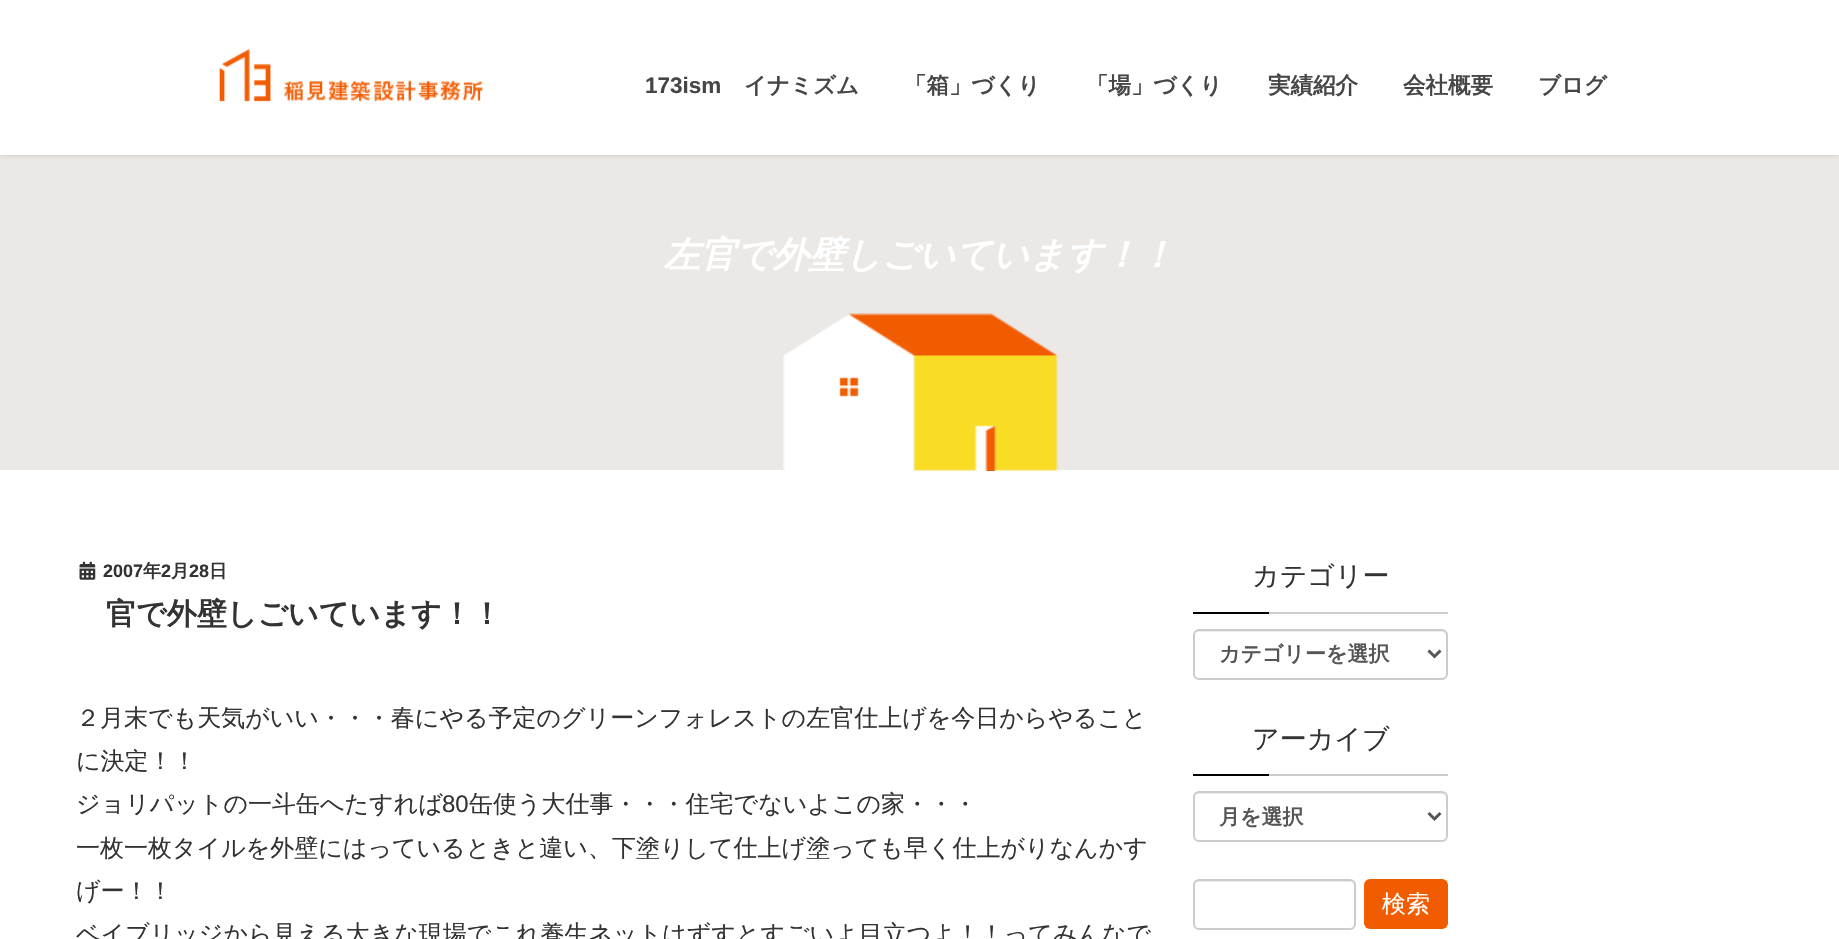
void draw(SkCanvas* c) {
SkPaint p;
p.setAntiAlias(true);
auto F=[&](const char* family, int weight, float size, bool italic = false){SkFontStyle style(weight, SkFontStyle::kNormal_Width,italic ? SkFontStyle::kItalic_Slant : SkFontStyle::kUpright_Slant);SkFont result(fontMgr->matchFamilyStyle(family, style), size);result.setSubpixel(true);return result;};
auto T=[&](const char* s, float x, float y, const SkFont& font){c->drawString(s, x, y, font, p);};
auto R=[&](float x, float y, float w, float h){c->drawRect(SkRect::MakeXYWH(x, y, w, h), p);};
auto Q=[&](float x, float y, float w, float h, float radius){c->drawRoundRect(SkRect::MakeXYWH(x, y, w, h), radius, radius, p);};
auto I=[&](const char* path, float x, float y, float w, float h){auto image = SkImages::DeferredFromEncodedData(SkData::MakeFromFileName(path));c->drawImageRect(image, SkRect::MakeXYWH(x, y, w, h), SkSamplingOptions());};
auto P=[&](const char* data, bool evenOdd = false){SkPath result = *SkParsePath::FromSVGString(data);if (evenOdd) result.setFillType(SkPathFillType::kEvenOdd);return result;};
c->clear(0xffffffff);
p.setColor(0xffebe8e6);
R(0,155,1839,315);
p.setColor(0x1a000000);
p.setMaskFilter(SkMaskFilter::MakeBlur(kNormal_SkBlurStyle, 2));
c->drawRect(SkRect::MakeXYWH(0,2,1839,154),p);
p.setMaskFilter(nullptr);
p.setColor(0xffffffff);
R(0,0,1839,155);
I("1.png",219,49,264,53);
auto f1 = F("Liberation Sans",700,22.5);
p.setColor(0xff464646);
T("173ism",645,93,f1);
auto f2 = F("WenQuanYi Zen Hei",700,22.5);
T("イナミズム",744,93,f2);
T("「箱」づくり",904,93,f2);
T("「場」づくり",1086,93,f2);
T("実績紹介",1268,93,f2);
T("会社概要",1403,93,f2);
T("ブログ",1538,93,f2);
auto f3 = F("WenQuanYi Zen Hei",700,36,true);
p.setColor(0xffffffff);
T("左官で外壁しごいています！！",664,267,f3);
I("2.png",783,313,275,158);
I("3.png",79,561,17,19);
auto f4 = F("Liberation Sans",700,18);
p.setColor(0xff333333);
T("2007",103,577,f4);
auto f5 = F("WenQuanYi Zen Hei",700,18);
T("年",143,577,f5);
T("2",161,577,f4);
T("月",171,577,f5);
T("28",189,577,f4);
T("日",209,577,f5);
auto f6 = F("Noto Sans",100,30);
p.setColor(0xff000000);
T("左",76,624,f6);
auto f7 = F("WenQuanYi Zen Hei",700,30);
p.setColor(0xff333333);
T("官で外壁しごいています！！",106,624,f7);
auto f8 = F("WenQuanYi Zen Hei",500,24);
T("２月末でも天気がいい・・・春にやる予定のグリーンフォレストの左官仕上げを今日からやること",76,726,f8);
T("に決定！！",76,769,f8);
T("ジョリパットの一斗缶へたすれば",76,812,f8);
auto f9 = F("Liberation Sans",400,24);
T("80",442,812,f9);
T("缶使う大仕事・・・住宅でないよこの家・・・",469,812,f8);
T("一枚一枚タイルを外壁にはっているときと違い、下塗りして仕上げ塗っても早く仕上がりなんかす",76,856,f8);
T("げー！！",76,899,f8);
T("ベイブリッジから見える大きな現場でこれ養生ネットはずすとすごいよ目立つよ！！ってみんなで",76,942,f8);
p.setColor(0xffcccccc);
R(1269,612,179,2);
auto f10 = F("WenQuanYi Zen Hei",500,27);
p.setColor(0xff333333);
T("カテゴリー",1252,585,f10);
p.setColor(0xff000000);
R(1193,612,76,2);
p.setColor(0xffececec);
c->drawPath(P("M1198 632h244c2 0 4 2 4 4v-1c0-3-2-5-5-5h-242c-3 0-5 2-5 5v1c0-2 2-4 4-4z"),p);
p.setStroke(true);
p.setStrokeWidth(2);
p.setColor(0xffcccccc);
c->drawRoundRect(SkRect::MakeXYWH(1194,630,253,49),5,5,p);
p.setStrokeWidth(3);
p.setColor(0xff555555);
c->drawPath(P("M1428.5 650.5l6 6l6-6"),p);
auto f11 = F("WenQuanYi Zen Hei",700,21);
p.setStroke(false);
T("カテゴリーを選択",1219,661,f11);
p.setColor(0xffcccccc);
R(1269,774,179,2);
p.setColor(0xff333333);
T("アーカイブ",1252,748,f10);
p.setColor(0xff000000);
R(1193,774,76,2);
p.setColor(0xffececec);
c->drawPath(P("M1198 794h244c2 0 4 2 4 4v-1c0-3-2-5-5-5h-242c-3 0-5 2-5 5v1c0-2 2-4 4-4z"),p);
p.setStroke(true);
p.setStrokeWidth(2);
p.setColor(0xffcccccc);
c->drawRoundRect(SkRect::MakeXYWH(1194,792,253,49),5,5,p);
p.setStrokeWidth(3);
p.setColor(0xff555555);
c->drawPath(P("M1428.5 813l6 6l6-6"),p);
p.setStroke(false);
T("月を選択",1219,824,f11);
p.setColor(0xffececec);
c->drawPath(P("M1198 882h152c2 0 4 2 4 4v41c1-1 1-2 1-3v-38c0-3-2-5-5-5h-151c-3 0-5 2-5 5c0-2 2-4 4-4z"),p);
p.setStroke(true);
p.setStrokeWidth(2);
p.setColor(0xffcccccc);
c->drawRoundRect(SkRect::MakeXYWH(1194,880,161,49),5,5,p);
p.setStroke(false);
p.setColor(0xfff25c00);
Q(1364,879,84,50,6);
p.setColor(0xffffffff);
T("検索",1382,912,f8);
}
